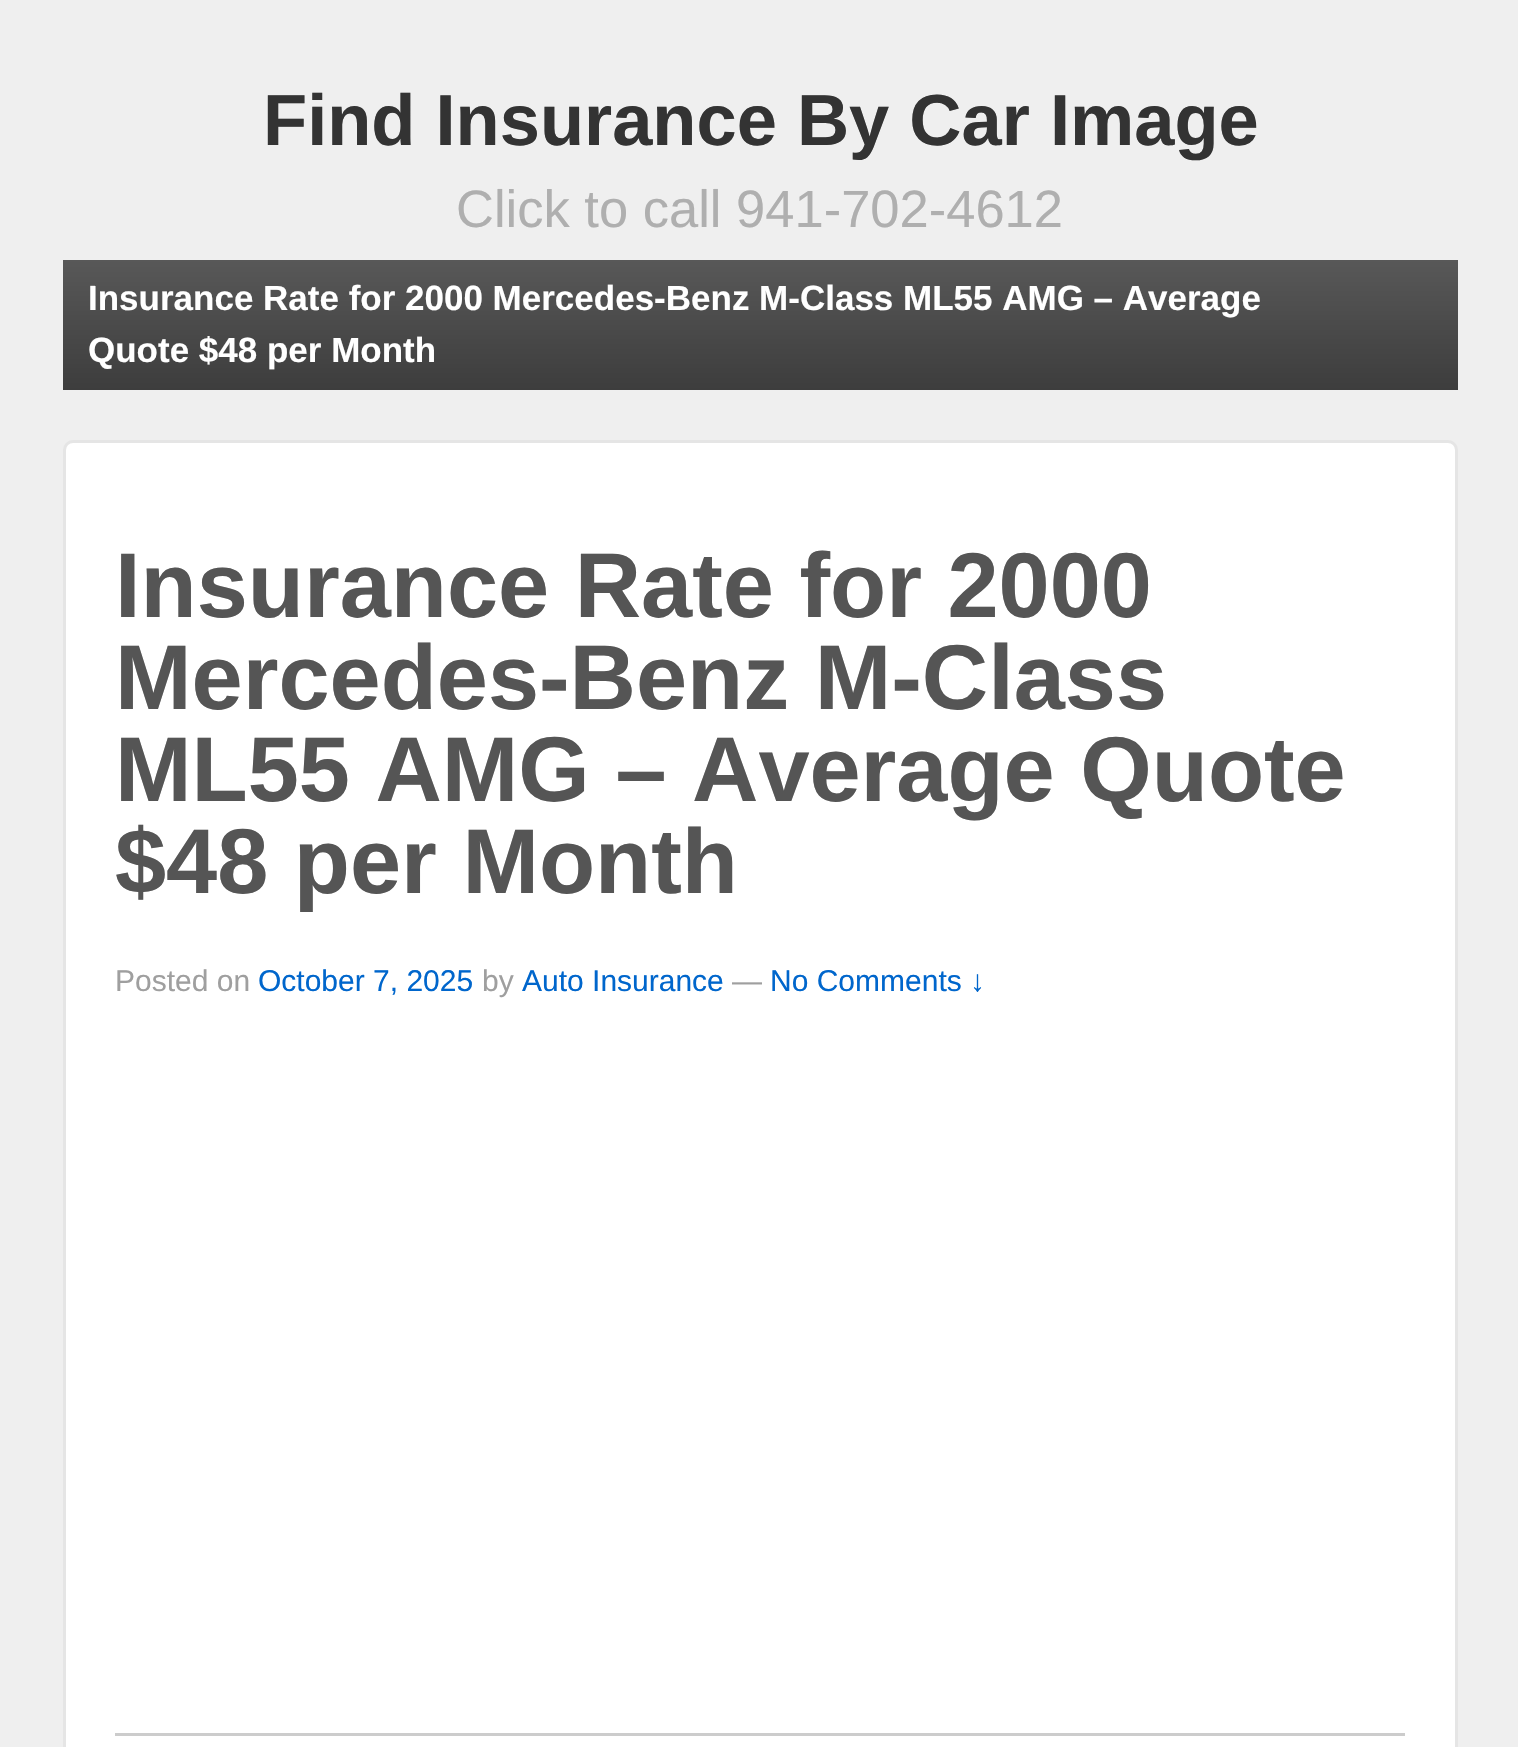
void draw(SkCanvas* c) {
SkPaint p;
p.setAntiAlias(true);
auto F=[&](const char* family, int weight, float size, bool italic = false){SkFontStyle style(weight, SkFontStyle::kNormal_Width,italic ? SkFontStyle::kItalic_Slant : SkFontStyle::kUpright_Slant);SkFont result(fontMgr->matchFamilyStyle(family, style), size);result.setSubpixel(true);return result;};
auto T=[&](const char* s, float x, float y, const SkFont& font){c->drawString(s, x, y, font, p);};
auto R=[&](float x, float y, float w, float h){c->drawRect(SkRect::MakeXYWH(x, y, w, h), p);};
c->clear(0xffefefef);
auto f1 = F("Liberation Sans",700,72.25);
p.setColor(0xff333333);
T("Find Insurance By Car Image",263,145,f1);
auto f2 = F("Liberation Sans",400,52.5);
p.setColor(0xffafafaf);
T("Click to call 941-702-4612",456,227,f2);
{
const SkColor colors[] = {0xff585858,0xff3d3d3d};
const float stops[] = {0,1};
const SkPoint ends[] = {{760,260}, {760,390}};
p.setShader(SkGradientShader::MakeLinear(ends, colors, stops, 2, SkTileMode::kClamp));
p.setAlpha(255);
}
R(63,260,1395,130);
auto f3 = F("Liberation Sans",700,35);
p.setShader(nullptr);
p.setColor(0xffffffff);
T("Insurance Rate for 2000 Mercedes-Benz M-Class ML55 AMG – Average",88,310,f3);
T("Quote $48 per Month",88,362,f3);
c->drawRoundRect(SkRect::MakeXYWH(64.5,441.5,1392,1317),8.5,8.5,p);
p.setStroke(true);
p.setStrokeWidth(3);
p.setColor(0xffe5e5e5);
c->drawRoundRect(SkRect::MakeXYWH(64.5,441.5,1392,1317),8.5,8.5,p);
auto f4 = F("Liberation Sans",700,91.9);
p.setStroke(false);
p.setColor(0xff555555);
T("Insurance Rate for 2000",115,617,f4);
T("Mercedes-Benz M-Class",115,709,f4);
T("ML55 AMG – Average Quote",115,801,f4);
T("$48 per Month",115,893,f4);
auto f5 = F("Liberation Sans",400,30);
p.setColor(0xff9f9f9f);
T("Posted on",115,991,f5);
p.setColor(0xff0066cc);
T("October 7, 2025",258,991,f5);
p.setColor(0xff9f9f9f);
T("by",482,991,f5);
p.setColor(0xff0066cc);
T("Auto Insurance",522,991,f5);
p.setColor(0xff9f9f9f);
T("—",732,991,f5);
p.setColor(0xff0066cc);
T("No Comments ↓",770,991,f5);
p.setColor(0xffcccccc);
R(115,1733,1290,3);
}
